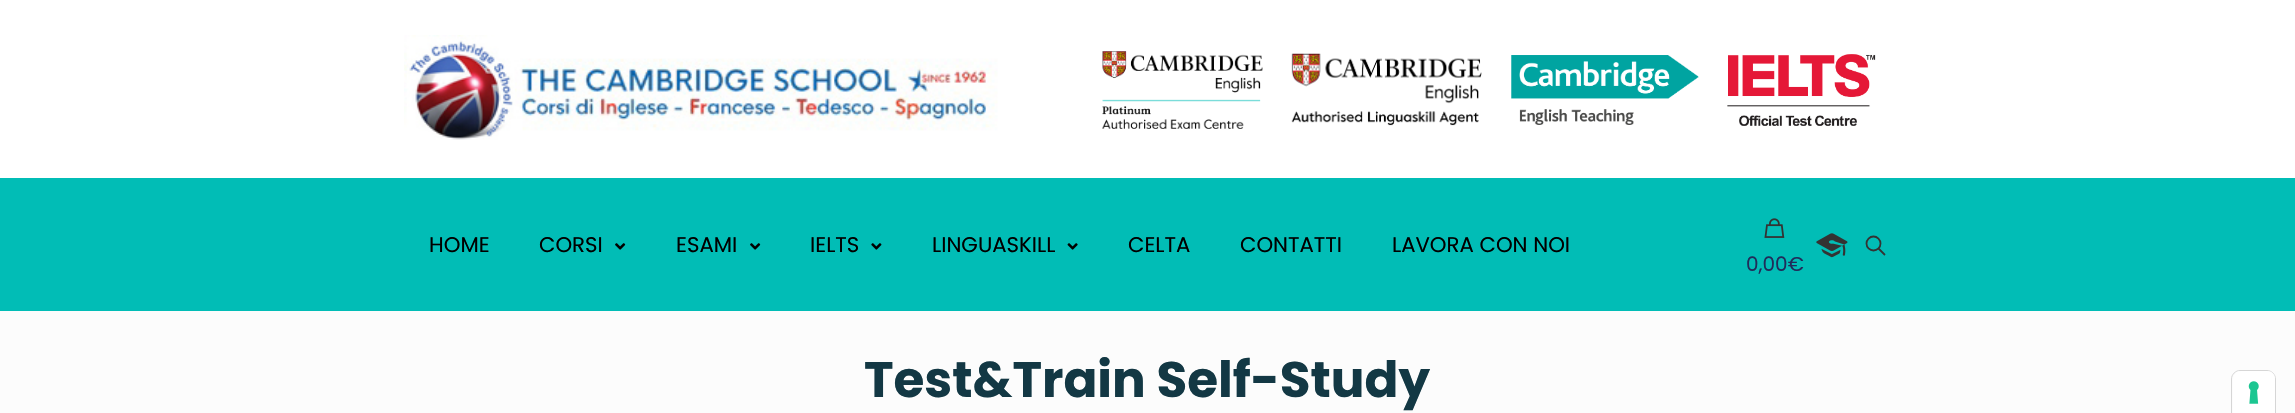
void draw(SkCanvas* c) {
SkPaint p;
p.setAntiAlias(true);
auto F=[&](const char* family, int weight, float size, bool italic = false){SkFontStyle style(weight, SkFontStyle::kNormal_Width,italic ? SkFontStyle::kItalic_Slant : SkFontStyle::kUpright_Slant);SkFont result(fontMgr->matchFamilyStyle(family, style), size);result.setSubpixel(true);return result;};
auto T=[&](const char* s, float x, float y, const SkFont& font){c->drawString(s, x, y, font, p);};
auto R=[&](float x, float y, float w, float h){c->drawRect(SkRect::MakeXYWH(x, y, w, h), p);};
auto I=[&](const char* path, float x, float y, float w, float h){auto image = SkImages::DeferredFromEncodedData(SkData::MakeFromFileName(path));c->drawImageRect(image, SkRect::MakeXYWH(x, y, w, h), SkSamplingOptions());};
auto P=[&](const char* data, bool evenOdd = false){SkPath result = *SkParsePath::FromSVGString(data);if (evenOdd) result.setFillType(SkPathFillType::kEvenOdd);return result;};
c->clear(0xfffcfcfc);
p.setColor(0xffffffff);
R(0,0,2295,178);
I("1.png",404,35,594,105);
I("2.png",1102,51,161,78);
I("3.png",1291,53,191,73);
I("4.png",1511,55,188,70);
I("5.png",1727,54,149,72);
p.setColor(0xff01bdb6);
R(0,178,2295,133);
auto f1 = F("Poppins",400,21.25);
p.setColor(0xff000000);
T("HOME",429,252,f1);
T("CORSI",539,252,f1);
I("6.png",615,243,11,7);
T("ESAMI",676,252,f1);
I("6.png",750,243,11,7);
T("IELTS",810,252,f1);
I("7.png",871,243,11,7);
T("LINGUASKILL",932,252,f1);
I("8.png",1067,243,11,7);
T("CELTA",1128,252,f1);
T("CONTATTI",1240,252,f1);
T("LAVORA CON NOI",1392,252,f1);
I("9.png",1816,233,32,25);
p.setStroke(true);
p.setStrokeWidth(1.8);
p.setColor(0xff333333);
c->drawCircle(1873.5,243.5,7,p);
c->drawPath(P("M1878.5 248.5l6.5 6.5"),p);
I("10.png",1764,218,21,20);
auto f2 = F("Poppins",400,20);
p.setStroke(false);
p.setColor(0xff202c5a);
T("0,00€",1746,271,f2);
auto f3 = F("Poppins",700,50);
p.setColor(0xff133844);
T("Test&Train Self-Study",864,397,f3);
p.setStroke(true);
p.setStrokeWidth(1);
p.setColor(0xffd6d6d6);
c->drawPath(P("M2240 370.5h27c4.5 0 8.5 4 8.5 8.5v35.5h-44v-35.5c0-4.5 4-8.5 8.5-8.5z"),p);
p.setStroke(false);
p.setColor(0xffffffff);
c->drawPath(P("M2241 371h26c4.5 0 8 3.5 8 8v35h-42v-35c0-4.5 3.5-8 8-8z"),p);
I("11.png",2248,381,11,23);
}
